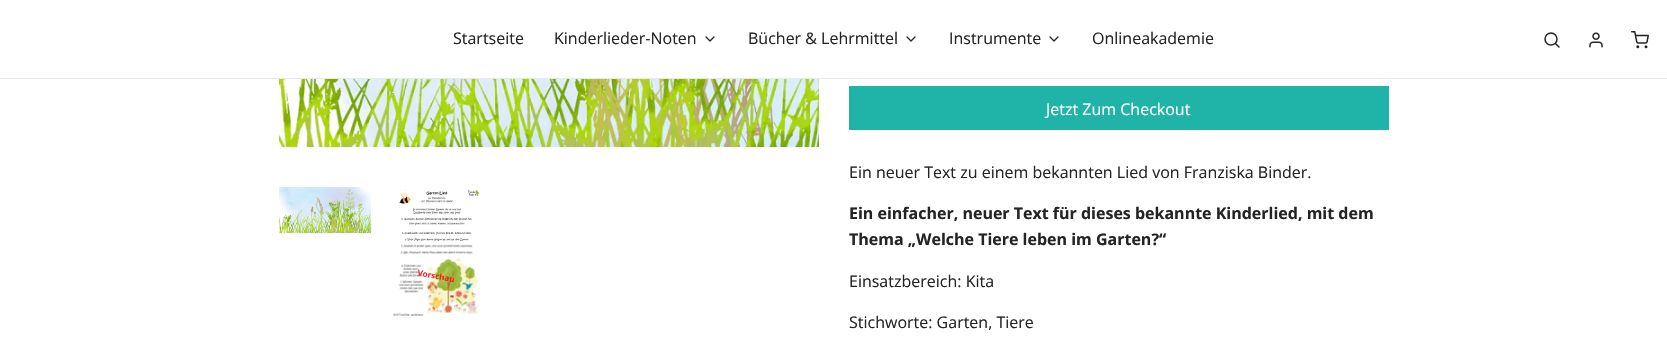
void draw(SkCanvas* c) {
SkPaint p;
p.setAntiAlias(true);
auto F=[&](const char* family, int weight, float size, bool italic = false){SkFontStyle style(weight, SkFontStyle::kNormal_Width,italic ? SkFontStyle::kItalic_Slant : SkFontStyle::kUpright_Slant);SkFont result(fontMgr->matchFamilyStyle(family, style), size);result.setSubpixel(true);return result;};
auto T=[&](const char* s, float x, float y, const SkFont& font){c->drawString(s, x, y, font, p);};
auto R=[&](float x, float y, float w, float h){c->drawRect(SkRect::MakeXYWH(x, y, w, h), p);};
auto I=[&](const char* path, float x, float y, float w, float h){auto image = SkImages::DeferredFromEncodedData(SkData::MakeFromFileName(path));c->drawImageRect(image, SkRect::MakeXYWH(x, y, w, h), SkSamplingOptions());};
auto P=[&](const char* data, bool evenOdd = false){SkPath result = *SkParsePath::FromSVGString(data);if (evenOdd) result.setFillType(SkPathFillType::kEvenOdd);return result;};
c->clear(0xffffffff);
p.setColor(0xffe9e9e9);
R(0,78,1667,1);
auto f1 = F("Open Sans",400,16);
p.setColor(0xff242424);
T("Startseite",453,44,f1);
T("Kinderlieder-Noten",554,44,f1);
p.setStroke(true);
p.setStrokeWidth(1.3);
p.setStrokeCap(SkPaint::kRound_Cap);
p.setStrokeJoin(SkPaint::kRound_Join);
c->drawPath(P("M706 37l4 4l4-4"),p);
p.setStroke(false);
T("Bücher & Lehrmittel",748,44,f1);
p.setStroke(true);
c->drawPath(P("M907 37l4 4l4-4"),p);
p.setStroke(false);
T("Instrumente",949,44,f1);
p.setStroke(true);
c->drawPath(P("M1050 37l4 4l4-4"),p);
p.setStroke(false);
T("Onlineakademie",1092,44,f1);
p.setStroke(true);
p.setStrokeWidth(1.5);
p.setStrokeCap(SkPaint::kButt_Cap);
p.setStrokeJoin(SkPaint::kMiter_Join);
c->drawCircle(1551,39,6,p);
p.setStrokeCap(SkPaint::kRound_Cap);
p.setStrokeJoin(SkPaint::kRound_Join);
c->drawPath(P("M1559 47l-3.5-3.5"),p);
I("1.png",1589,32,14,16);
I("2.png",1631,31,18,18);
I("3.png",279,79,540,68);
I("4.png",279,187,92,46);
I("5.png",393,189,87,129);
p.setStroke(false);
p.setColor(0xff20b3a8);
R(849,86,540,44);
p.setColor(0xffffffff);
T("Jetzt Zum Checkout",1046,115,f1);
p.setColor(0xff242424);
T("Ein neuer Text zu einem bekannten Lied von Franziska Binder.",849,178,f1);
auto f2 = F("Open Sans",700,16);
T("Ein einfacher, neuer Text für dieses bekannte Kinderlied, mit dem",849,219,f2);
T("Thema „Welche Tiere leben im Garten?“",849,245,f2);
T("Einsatzbereich: Kita",849,287,f1);
T("Stichworte: Garten, Tiere",849,328,f1);
}
